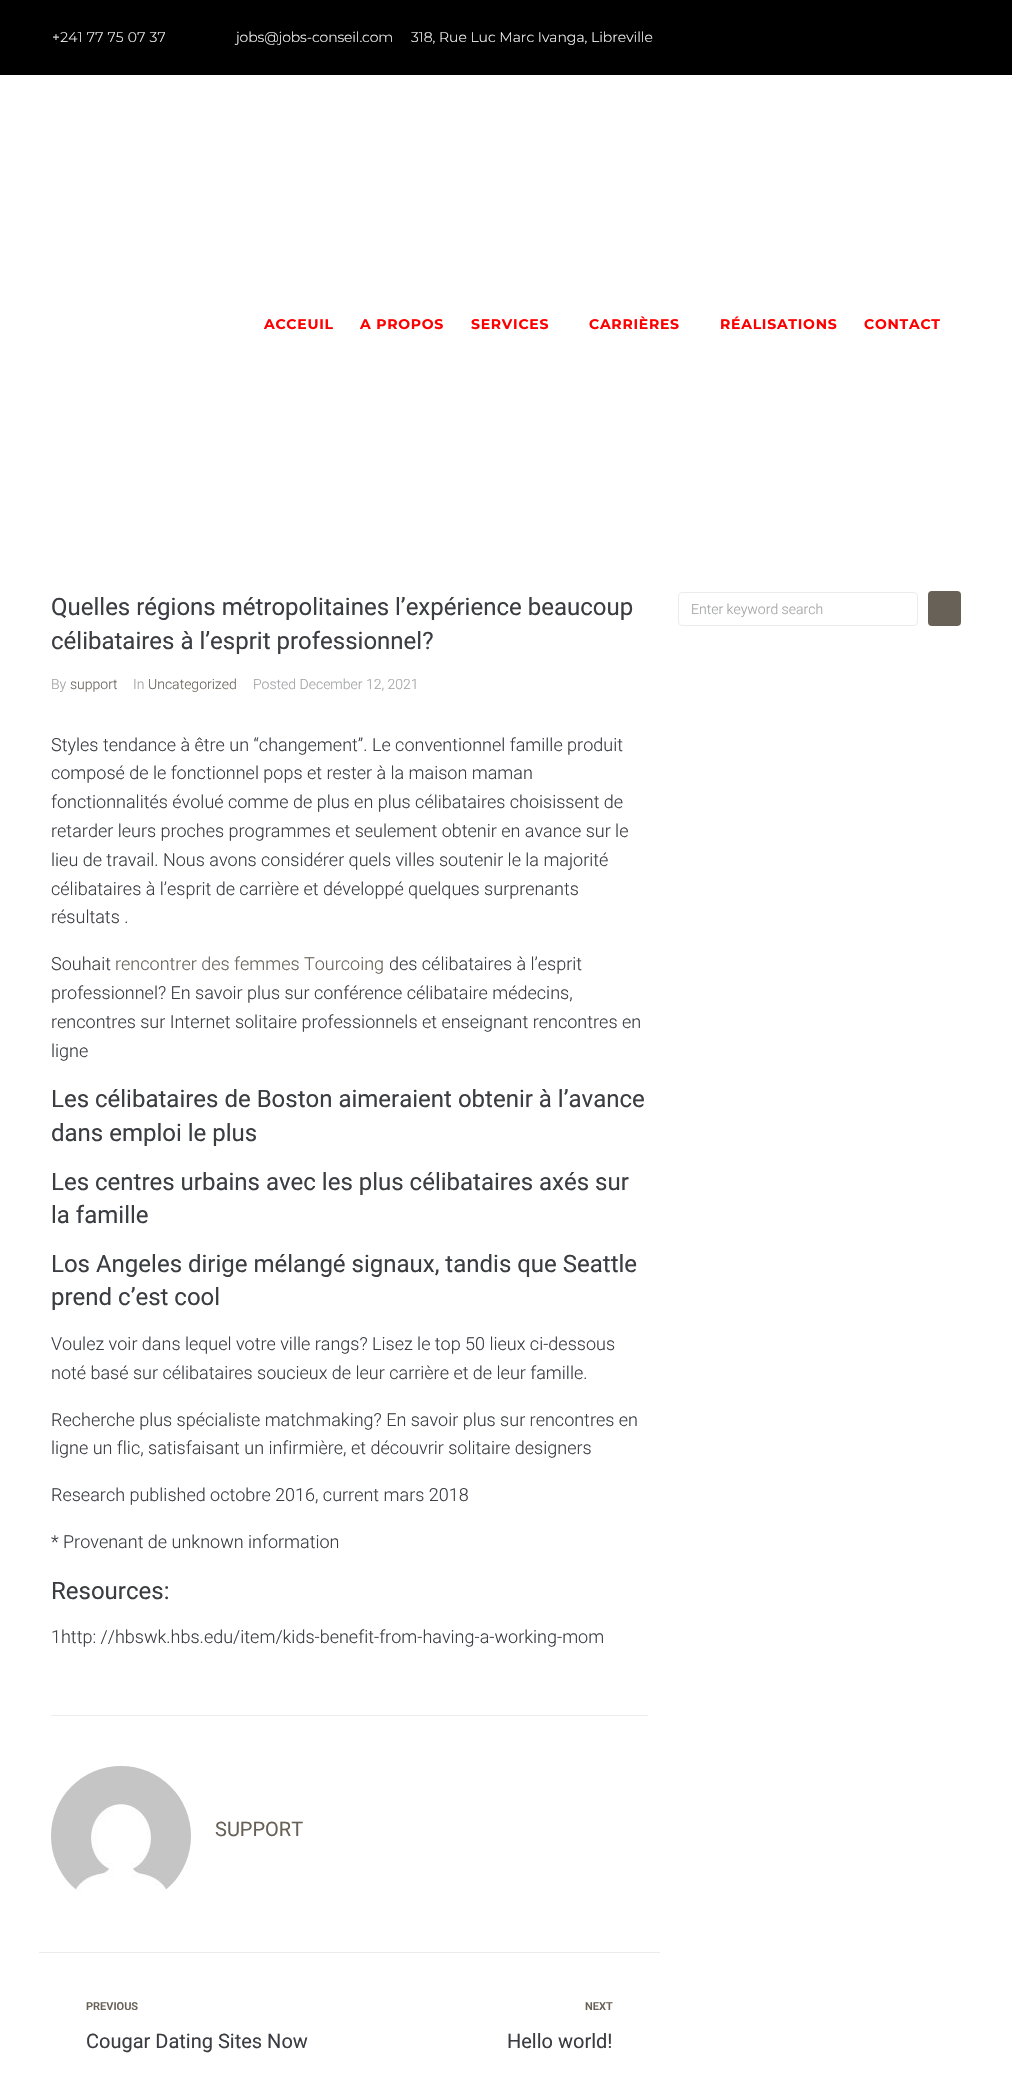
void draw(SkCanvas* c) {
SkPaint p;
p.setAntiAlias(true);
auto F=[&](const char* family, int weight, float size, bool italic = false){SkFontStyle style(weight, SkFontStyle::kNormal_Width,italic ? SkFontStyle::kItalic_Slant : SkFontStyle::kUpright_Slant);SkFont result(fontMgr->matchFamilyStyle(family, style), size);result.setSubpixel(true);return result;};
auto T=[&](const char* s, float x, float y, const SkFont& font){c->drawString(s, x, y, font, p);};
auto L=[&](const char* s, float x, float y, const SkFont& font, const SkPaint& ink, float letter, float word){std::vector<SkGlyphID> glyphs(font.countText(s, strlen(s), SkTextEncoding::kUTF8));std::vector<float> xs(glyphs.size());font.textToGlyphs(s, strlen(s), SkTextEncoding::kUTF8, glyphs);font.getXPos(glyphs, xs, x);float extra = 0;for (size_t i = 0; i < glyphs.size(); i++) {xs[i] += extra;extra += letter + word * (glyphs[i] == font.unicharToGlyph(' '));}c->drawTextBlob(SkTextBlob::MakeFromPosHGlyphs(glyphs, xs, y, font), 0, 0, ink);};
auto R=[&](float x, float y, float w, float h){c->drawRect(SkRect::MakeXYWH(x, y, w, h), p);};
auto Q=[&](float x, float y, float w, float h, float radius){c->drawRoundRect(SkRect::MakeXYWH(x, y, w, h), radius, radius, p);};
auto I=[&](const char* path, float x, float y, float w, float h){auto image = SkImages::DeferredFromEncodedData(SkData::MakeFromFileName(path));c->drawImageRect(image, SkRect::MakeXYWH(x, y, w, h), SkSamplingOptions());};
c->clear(0xffffffff);
p.setColor(0xff000000);
R(0,0,1012,75);
auto f1 = F("Montserrat",300,14);
p.setColor(0xffffffff);
L("+241 77 75 07 37",52,42,f1,p,.25,0);
L("jobs@jobs-conseil.com",236,42,f1,p,-.1,0);
T("318, Rue Luc Marc Ivanga, Libreville",411,42,f1);
auto f2 = F("Montserrat",700,14);
p.setColor(0xffff0000);
L("ACCEUIL",264,329,f2,p,.75,0);
L("A PROPOS",360,329,f2,p,.75,0);
L("SERVICES",471,329,f2,p,.75,0);
L("CARRIÈRES",589,329,f2,p,.75,0);
L("RÉALISATIONS",720,329,f2,p,.75,0);
L("CONTACT",864,329,f2,p,.75,0);
p.setColor(0xffebeced);
R(51,1715,597,1);
auto f3 = F("Roboto",400,24);
p.setColor(0xff3b3d42);
T("Quelles régions métropolitaines l’expérience beaucoup",51,615,f3);
T("célibataires à l’esprit professionnel?",51,649,f3);
auto f4 = F("Roboto",300,14);
p.setColor(0xffa1a2a4);
T("By",51,689,f4);
p.setColor(0xff686157);
T("support",70,689,f4);
p.setColor(0xffa1a2a4);
T("In",133,689,f4);
p.setColor(0xff686157);
T("Uncategorized",148,689,f4);
p.setColor(0xffa1a2a4);
T("Posted December 12, 2021",253,689,f4);
auto f5 = F("Roboto",300,18);
p.setColor(0xff3b3d42);
T("Styles tendance à être un “changement”. Le conventionnel famille produit",51,751,f5);
T("composé de le fonctionnel pops et rester à la maison maman",51,779,f5);
T("fonctionnalités évolué comme de plus en plus célibataires choisissent de",51,808,f5);
T("retarder leurs proches programmes et seulement obtenir en avance sur le",51,837,f5);
T("lieu de travail. Nous avons considérer quels villes soutenir le la majorité",51,866,f5);
T("célibataires à l’esprit de carrière et développé quelques surprenants",51,895,f5);
T("résultats .",51,923,f5);
T("Souhait",51,970,f5);
p.setColor(0xff686157);
T("rencontrer des femmes Tourcoing",115,970,f5);
p.setColor(0xff3b3d42);
T("des célibataires à l’esprit",389,970,f5);
T("professionnel? En savoir plus sur conférence célibataire médecins,",51,999,f5);
T("rencontres sur Internet solitaire professionnels et enseignant rencontres en",51,1028,f5);
T("ligne",51,1057,f5);
T("Les célibataires de Boston aimeraient obtenir à l’avance",51,1107,f3);
T("dans emploi le plus",51,1141,f3);
T("Les centres urbains avec les plus célibataires axés sur",51,1190,f3);
T("la famille",51,1223,f3);
T("Los Angeles dirige mélangé signaux, tandis que Seattle",51,1272,f3);
T("prend c’est cool",51,1305,f3);
T("Voulez voir dans lequel votre ville rangs? Lisez le top 50 lieux ci-dessous",51,1350,f5);
T("noté basé sur célibataires soucieux de leur carrière et de leur famille.",51,1379,f5);
T("Recherche plus spécialiste matchmaking? En savoir plus sur rencontres en",51,1426,f5);
T("ligne un flic, satisfaisant un infirmière, et découvrir solitaire designers",51,1454,f5);
T("Research published octobre 2016, current mars 2018",51,1501,f5);
T("* Provenant de unknown information",51,1548,f5);
T("Resources:",51,1599,f3);
T("1http: //hbswk.hbs.edu/item/kids-benefit-from-having-a-working-mom",51,1643,f5);
p.setColor(0xffebeced);
R(39,1952,621,1);
I("1.png",51,1766,140,128);
auto f6 = F("Roboto",400,20);
p.setColor(0xff686157);
T("SUPPORT",215,1836,f6);
auto f7 = F("Roboto",600,11);
T("PREVIOUS",86,2010,f7);
p.setColor(0xff3b3d42);
T("Cougar Dating Sites Now",86,2048,f6);
p.setColor(0xff686157);
T("NEXT",585,2010,f7);
p.setColor(0xff3b3d42);
T("Hello world!",507,2048,f6);
p.setStroke(true);
p.setStrokeWidth(1);
p.setColor(0xffebeced);
c->drawRoundRect(SkRect::MakeXYWH(678.5,592.5,239,33),3.5,3.5,p);
p.setStroke(false);
p.setColor(0xffa1a2a4);
T("Enter keyword search",691,614,f4);
p.setColor(0xff686157);
Q(928,591,33,35,4);
}
